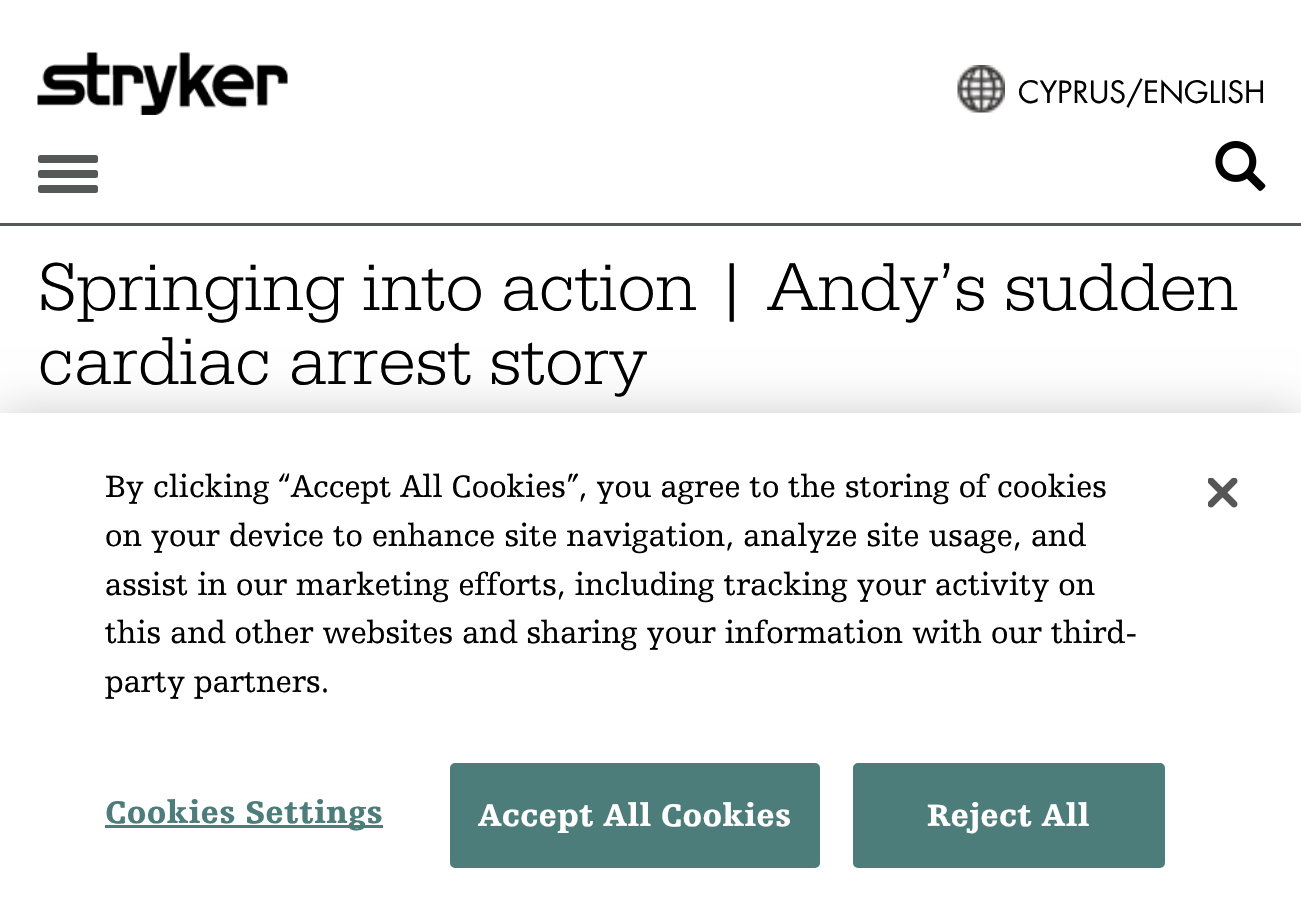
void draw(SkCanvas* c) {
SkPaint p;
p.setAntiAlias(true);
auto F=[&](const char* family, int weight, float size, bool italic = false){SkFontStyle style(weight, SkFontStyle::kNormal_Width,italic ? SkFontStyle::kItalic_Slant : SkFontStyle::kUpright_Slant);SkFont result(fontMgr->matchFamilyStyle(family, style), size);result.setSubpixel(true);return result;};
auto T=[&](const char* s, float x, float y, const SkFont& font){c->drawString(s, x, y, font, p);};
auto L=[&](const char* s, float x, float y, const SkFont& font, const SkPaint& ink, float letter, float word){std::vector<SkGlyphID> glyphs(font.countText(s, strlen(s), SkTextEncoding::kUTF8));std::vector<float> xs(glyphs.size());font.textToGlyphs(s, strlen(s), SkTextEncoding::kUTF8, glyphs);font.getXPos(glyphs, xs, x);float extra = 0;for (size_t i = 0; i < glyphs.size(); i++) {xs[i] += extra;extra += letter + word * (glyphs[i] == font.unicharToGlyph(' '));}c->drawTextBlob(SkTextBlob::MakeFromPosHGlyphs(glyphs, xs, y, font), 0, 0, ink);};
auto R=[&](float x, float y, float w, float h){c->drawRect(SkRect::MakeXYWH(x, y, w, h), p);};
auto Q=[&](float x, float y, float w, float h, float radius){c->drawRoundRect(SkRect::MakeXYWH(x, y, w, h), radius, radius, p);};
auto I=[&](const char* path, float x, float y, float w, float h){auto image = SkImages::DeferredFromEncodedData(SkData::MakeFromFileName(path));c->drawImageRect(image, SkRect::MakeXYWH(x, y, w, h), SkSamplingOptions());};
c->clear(0xffffffff);
p.setColor(0xff545857);
R(0,223,1301,3);
I("1.png",37,52,251,63);
I("2.png",957,65,48,48);
auto f1 = F("Futura",400,30);
p.setColor(0xff000000);
T("CYPRUS/ENGLISH",1018,103,f1);
p.setColor(0xff545857);
Q(38,155,60,8,2.5);
Q(38,170,60,8,2.5);
Q(38,185,60,8,2.5);
I("3.png",1215,141,51,50);
auto f2 = F("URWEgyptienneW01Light",300,70);
p.setColor(0xff000000);
T("Springing into action | Andy’s sudden",38,310,f2);
T("cardiac arrest story",38,384,f2);
p.setColor(0x33000000);
p.setMaskFilter(SkMaskFilter::MakeBlur(kNormal_SkBlurStyle, 22.5));
c->drawRect(SkRect::MakeXYWH(0,413,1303,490),p);
p.setMaskFilter(nullptr);
p.setColor(0xffffffff);
R(0,413,1301,489);
auto f3 = F("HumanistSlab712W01",400,32.5);
p.setColor(0xff000000);
T("By clicking “Accept All Cookies”, you agree to the storing of cookies",105,497,f3);
T("on your device to enhance site navigation, analyze site usage, and",105,546,f3);
T("assist in our marketing efforts, including tracking your activity on",105,595,f3);
T("this and other websites and sharing your information with our third-",105,643,f3);
T("party partners.",105,692,f3);
p.setColor(0xff4c7d7a);
R(105,825,278,3);
auto f4 = F("HumanistSlab712W01",900,32.5);
L("Cookies Settings",105,823,f4,p,.3,0);
c->drawRoundRect(SkRect::MakeXYWH(451.5,764.5,367,102),3.5,3.5,p);
p.setStroke(true);
p.setStrokeWidth(3);
c->drawRoundRect(SkRect::MakeXYWH(451.5,764.5,367,102),3.5,3.5,p);
p.setStroke(false);
p.setColor(0xffffffff);
L("Accept All Cookies",478,826,f4,p,.3,0);
p.setColor(0xff4c7d7a);
c->drawRoundRect(SkRect::MakeXYWH(854.5,764.5,309,102),3.5,3.5,p);
p.setStroke(true);
c->drawRoundRect(SkRect::MakeXYWH(854.5,764.5,309,102),3.5,3.5,p);
p.setStroke(false);
p.setColor(0xffffffff);
L("Reject All",927,826,f4,p,.3,0);
I("4.png",1208,478,30,30);
}
